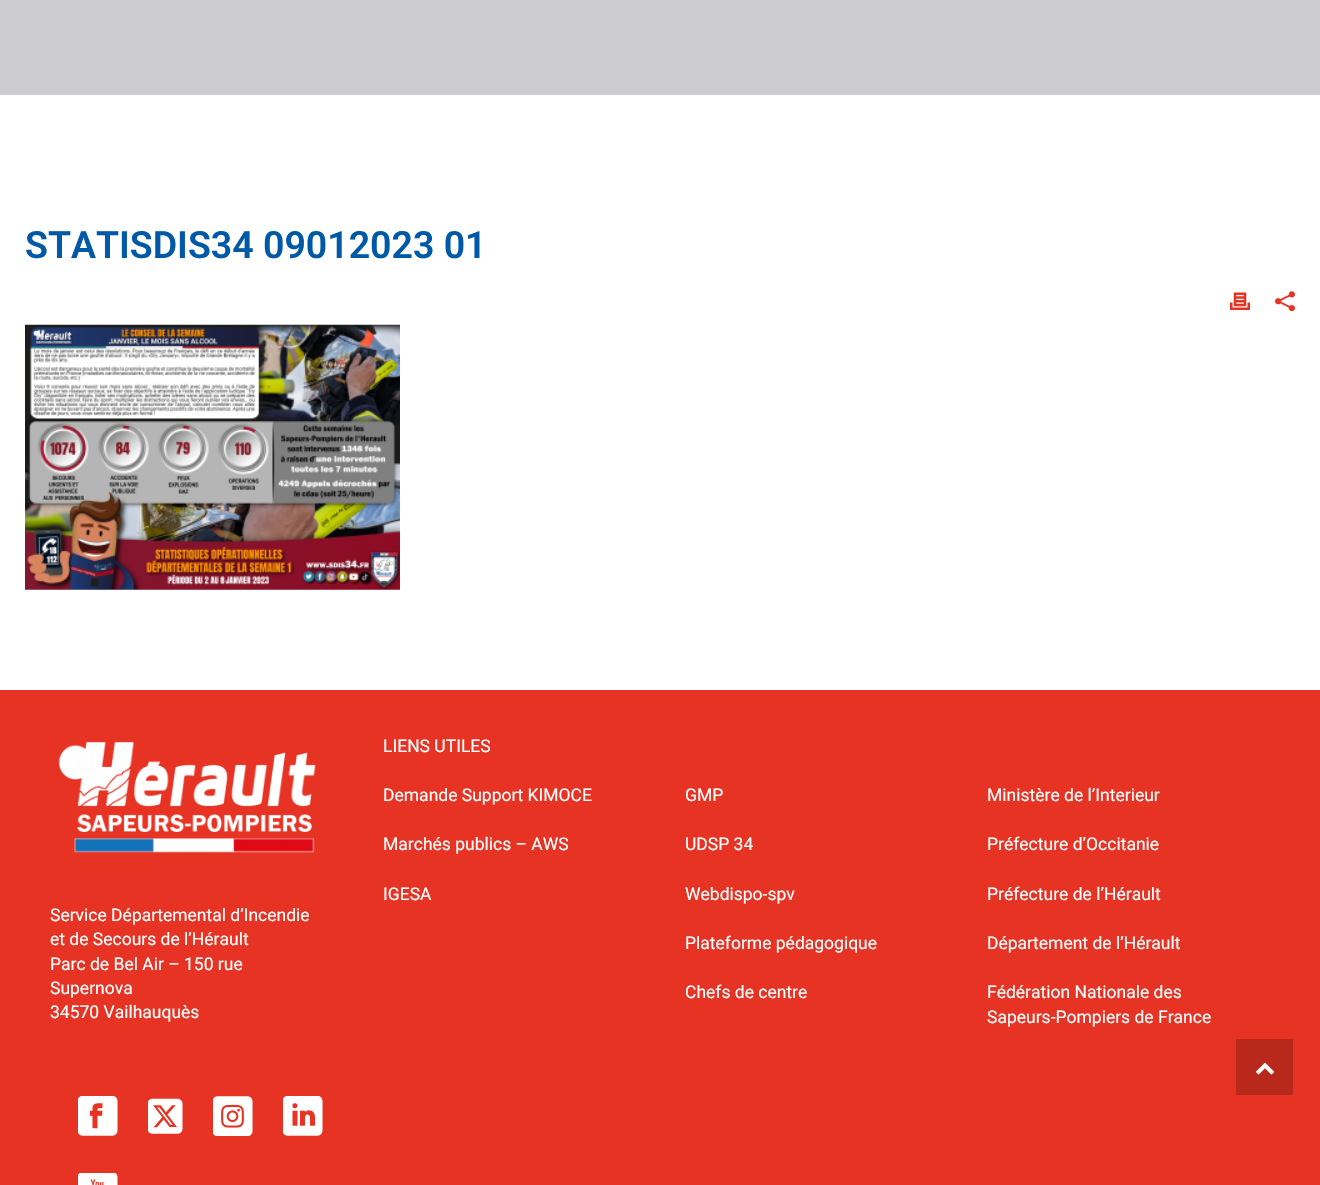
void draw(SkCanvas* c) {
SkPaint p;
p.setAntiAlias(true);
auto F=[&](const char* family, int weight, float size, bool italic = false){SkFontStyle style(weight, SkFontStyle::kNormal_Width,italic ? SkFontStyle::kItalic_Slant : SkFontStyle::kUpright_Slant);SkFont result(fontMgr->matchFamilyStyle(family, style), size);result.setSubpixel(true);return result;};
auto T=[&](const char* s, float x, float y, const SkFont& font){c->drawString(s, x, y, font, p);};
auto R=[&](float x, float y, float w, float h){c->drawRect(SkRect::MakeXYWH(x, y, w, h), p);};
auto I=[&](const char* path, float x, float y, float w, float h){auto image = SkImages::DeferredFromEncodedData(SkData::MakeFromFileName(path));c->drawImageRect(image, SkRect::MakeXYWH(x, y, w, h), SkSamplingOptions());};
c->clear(0xffffffff);
p.setColor(0xffccccd0);
R(0,0,1320,95);
auto f1 = F("Roboto",600,37.5);
p.setColor(0xff0059a6);
T("STATISDIS34 09012023 01",25,258,f1);
I("1.png",1230,292,20,18);
I("2.png",1275,291,20,20);
I("3.png",25,324,375,266);
p.setColor(0xffe63323);
R(0,690,1320,495);
I("4.png",58,741,258,112);
auto f2 = F("Roboto",400,17.5);
p.setColor(0xffffffff);
T("Service Départemental d’Incendie",50,921,f2);
T("et de Secours de l’Hérault",50,945,f2);
T("Parc de Bel Air – 150 rue",50,970,f2);
T("Supernova",50,994,f2);
T("34570 Vailhauquès",50,1018,f2);
I("5.png",78,1096,40,40);
I("6.png",148,1098,35,36);
I("7.png",213,1096,40,40);
I("8.png",283,1096,40,40);
I("9.png",78,1173,40,12);
T("LIENS UTILES",383,752,f2);
T("Demande Support KIMOCE",383,801,f2);
T("Marchés publics – AWS",383,850,f2);
T("IGESA",383,900,f2);
T("GMP",685,801,f2);
T("UDSP 34",685,850,f2);
T("Webdispo-spv",685,900,f2);
T("Plateforme pédagogique",685,949,f2);
T("Chefs de centre",685,998,f2);
T("Ministère de l’Interieur",987,801,f2);
T("Préfecture d’Occitanie",987,850,f2);
T("Préfecture de l’Hérault",987,900,f2);
T("Département de l’Hérault",987,949,f2);
T("Fédération Nationale des",987,998,f2);
T("Sapeurs-Pompiers de France",987,1023,f2);
p.setColor(0xffb8291c);
R(1236,1039,57,56);
I("10.png",1256,1062,18,13);
}
